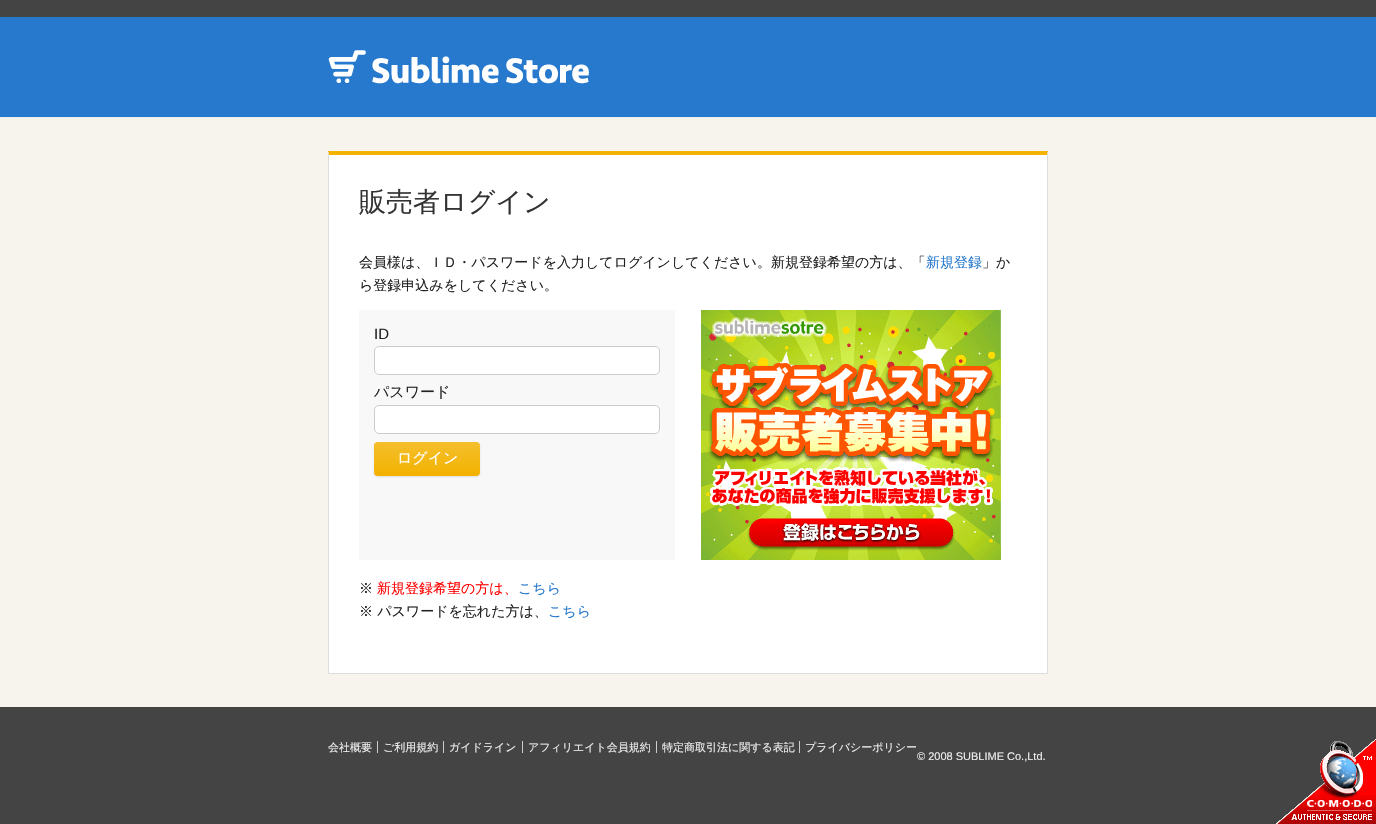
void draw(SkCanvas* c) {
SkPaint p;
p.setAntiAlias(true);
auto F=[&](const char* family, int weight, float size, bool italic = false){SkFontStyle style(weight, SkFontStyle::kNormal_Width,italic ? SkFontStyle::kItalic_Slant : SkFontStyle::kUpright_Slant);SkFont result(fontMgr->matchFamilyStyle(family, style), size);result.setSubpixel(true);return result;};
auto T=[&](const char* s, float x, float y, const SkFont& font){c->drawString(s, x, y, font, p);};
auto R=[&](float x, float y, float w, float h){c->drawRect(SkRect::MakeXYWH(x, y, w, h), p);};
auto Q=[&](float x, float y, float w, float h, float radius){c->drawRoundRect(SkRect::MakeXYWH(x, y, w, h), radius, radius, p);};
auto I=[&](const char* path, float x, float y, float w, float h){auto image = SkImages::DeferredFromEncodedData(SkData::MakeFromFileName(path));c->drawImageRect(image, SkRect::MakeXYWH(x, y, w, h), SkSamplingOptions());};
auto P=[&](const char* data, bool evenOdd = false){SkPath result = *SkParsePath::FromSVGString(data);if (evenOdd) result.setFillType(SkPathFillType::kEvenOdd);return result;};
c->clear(0xff444444);
p.setColor(0xff2679cc);
R(0,17,1376,100);
p.setColor(0xffeeeeee);
R(0,117,1376,1);
I("1.png",328,50,261,34);
p.setColor(0xfff6f4ed);
R(0,118,1376,589);
p.setColor(0xffffffff);
R(329,155,718,518);
p.setColor(0xfff3b200);
c->drawPath(P("M328 151h720l-1 4h-718z"),p);
p.setColor(0xffdddddd);
c->drawPath(P("M1048 151v523l-1-1v-518z"),p);
R(328,673,720,1);
c->drawPath(P("M328 674v-523l1 4v518z"),p);
auto f1 = F("WenQuanYi Zen Hei",500,27);
p.setColor(0xff333333);
T("販売者ログイン",359,211,f1);
auto f2 = F("WenQuanYi Zen Hei",500,14);
p.setColor(0xff222222);
T("会員様は、ＩＤ・パスワードを入力してログインしてください。新規登録希望の方は、「",359,267,f2);
p.setColor(0xff2679cc);
T("新規登録",926,267,f2);
p.setColor(0xff222222);
T("」か",982,267,f2);
T("ら登録申込みをしてください。",359,290,f2);
p.setColor(0xfff8f8f8);
R(359,310,316,250);
auto f3 = F("Liberation Sans",400,15);
p.setColor(0xff222222);
T("ID",374,339,f3);
p.setColor(0xffffffff);
c->drawRoundRect(SkRect::MakeXYWH(374.5,346.5,285,28),4.5,4.5,p);
p.setStroke(true);
p.setStrokeWidth(1);
p.setColor(0xffcccccc);
c->drawRoundRect(SkRect::MakeXYWH(374.5,346.5,285,28),4.5,4.5,p);
auto f4 = F("WenQuanYi Zen Hei",500,15);
p.setStroke(false);
p.setColor(0xff222222);
T("パスワード",374,397,f4);
p.setColor(0xffffffff);
c->drawRoundRect(SkRect::MakeXYWH(374.5,405.5,285,28),4.5,4.5,p);
p.setStroke(true);
p.setColor(0xffcccccc);
c->drawRoundRect(SkRect::MakeXYWH(374.5,405.5,285,28),4.5,4.5,p);
p.setStroke(false);
p.setColor(0x1a000000);
p.setMaskFilter(SkMaskFilter::MakeBlur(kNormal_SkBlurStyle, 1));
c->drawRoundRect(SkRect::MakeXYWH(374,443,106,34),4,4,p);
p.setMaskFilter(nullptr);
p.setColor(0xfff3b200);
Q(374,442,106,34,4);
I("2.png",374,442,106,30);
p.setColor(0xffffffff);
T("ログイン",397,463,f4);
I("3.png",701,310,300,250);
p.setColor(0xff222222);
T("※",359,593,f2);
p.setColor(0xffff0000);
T("新規登録希望の方は、",377,593,f2);
p.setColor(0xff2679cc);
T("こちら",518,593,f2);
p.setColor(0xff222222);
T("※ パスワードを忘れた方は、",359,616,f2);
p.setColor(0xff2679cc);
T("こちら",548,616,f2);
I("4.png",1276,739,100,85);
auto f5 = F("WenQuanYi Zen Hei",500,11);
p.setColor(0xffeeeeee);
T("会社概要",328,751,f5);
p.setColor(0xffcccccc);
R(377,741,1,12);
p.setColor(0xffeeeeee);
T("ご利用規約",383,751,f5);
p.setColor(0xffcccccc);
R(443,741,1,12);
p.setColor(0xffeeeeee);
T("ガイドライン",449,751,f5);
p.setColor(0xffcccccc);
R(522,741,1,12);
p.setColor(0xffeeeeee);
T("アフィリエイト会員規約",528,751,f5);
p.setColor(0xffcccccc);
R(656,741,1,12);
p.setColor(0xffeeeeee);
T("特定商取引法に関する表記",662,751,f5);
p.setColor(0xffcccccc);
R(799,741,1,12);
p.setColor(0xffeeeeee);
T("プライバシーポリシー",805,751,f5);
auto f6 = F("Liberation Sans",400,11);
T("© 2008 SUBLIME Co.,Ltd.",917,760,f6);
}
